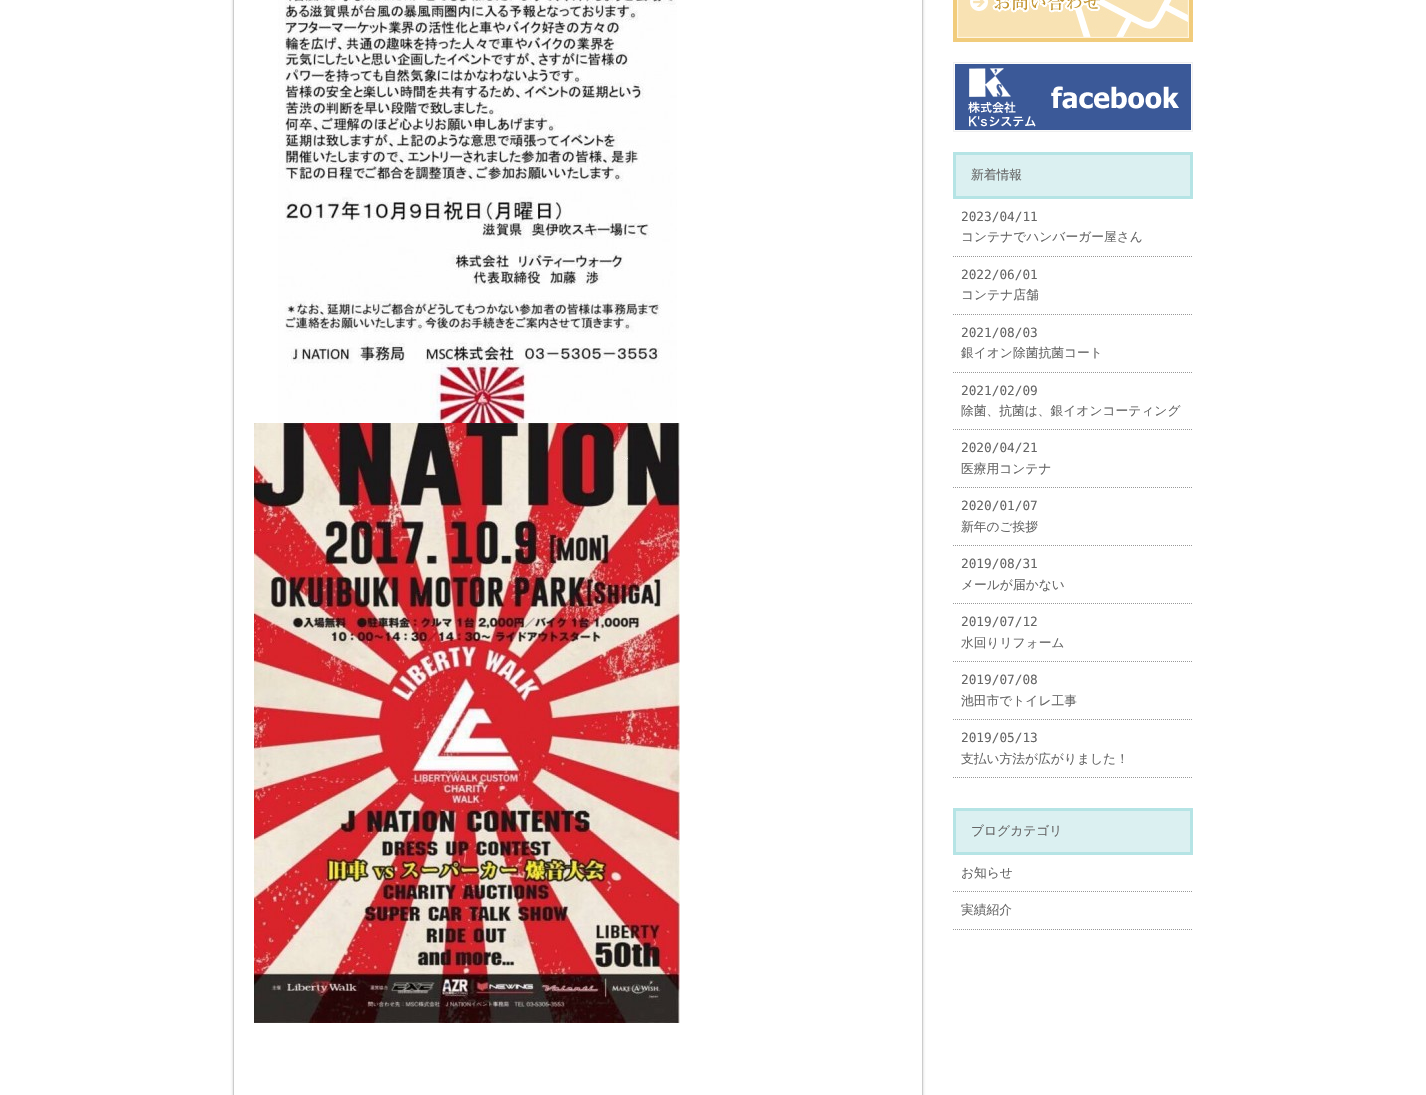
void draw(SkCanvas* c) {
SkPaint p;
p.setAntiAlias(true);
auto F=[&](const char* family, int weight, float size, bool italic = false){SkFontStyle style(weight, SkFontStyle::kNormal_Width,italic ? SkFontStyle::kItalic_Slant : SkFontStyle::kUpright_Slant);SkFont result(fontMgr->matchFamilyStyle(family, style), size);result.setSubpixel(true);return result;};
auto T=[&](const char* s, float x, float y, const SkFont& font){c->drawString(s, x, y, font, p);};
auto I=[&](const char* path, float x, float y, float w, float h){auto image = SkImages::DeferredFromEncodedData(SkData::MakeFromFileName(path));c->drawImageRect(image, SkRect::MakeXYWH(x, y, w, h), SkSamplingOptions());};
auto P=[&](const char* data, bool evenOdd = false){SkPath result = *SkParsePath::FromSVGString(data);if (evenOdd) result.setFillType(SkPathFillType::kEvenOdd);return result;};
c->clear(0xffffffff);
c->save();
c->clipPath(P("M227 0h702v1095h-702zm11-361h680c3 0 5 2 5 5v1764c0 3-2 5-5 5h-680c-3 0-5-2-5-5v-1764c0-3 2-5 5-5z",true),true);
p.setColor(0xffcccccc);
p.setMaskFilter(SkMaskFilter::MakeBlur(kNormal_SkBlurStyle, 1.5));
c->drawRoundRect(SkRect::MakeXYWH(233,-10,690,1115),5,5,p);
p.setMaskFilter(nullptr);
c->restore();
p.setStroke(true);
p.setStrokeWidth(1);
c->drawRect(SkRect::MakeXYWH(233.5,-.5,689,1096),p);
I("1.png",278,0,399,423);
I("2.png",254,423,426,600);
I("3.png",953,0,240,42);
I("4.png",953,62,240,70);
p.setStroke(false);
p.setColor(0xffdbf0f1);
c->drawRect(SkRect::MakeXYWH(954.5,153.5,237,44),p);
p.setStroke(true);
p.setStrokeWidth(3);
p.setColor(0xffb5e4e5);
c->drawRect(SkRect::MakeXYWH(954.5,153.5,237,44),p);
auto f1 = F("WenQuanYi Zen Hei",500,12.75);
p.setStroke(false);
p.setColor(0xff666666);
T("新着情報",971,179,f1);
p.setStroke(true);
p.setStrokeWidth(1);
p.setColor(0xff999999);
p.setPathEffect(SkDashPathEffect::Make({{1,1}}, 0));
c->drawPath(P("M953 256.5h240"),p);
p.setPathEffect(nullptr);
auto f2 = F("DejaVu Sans Mono",400,12.75);
p.setStroke(false);
p.setColor(0xff666666);
T("2023/04/11",961,221,f2);
T("コンテナでハンバーガー屋さん",961,241,f1);
p.setStroke(true);
p.setColor(0xff999999);
p.setPathEffect(SkDashPathEffect::Make({{1,1}}, 0));
c->drawPath(P("M953 314.5h240"),p);
p.setPathEffect(nullptr);
p.setStroke(false);
p.setColor(0xff666666);
T("2022/06/01",961,279,f2);
T("コンテナ店舗",961,299,f1);
p.setStroke(true);
p.setColor(0xff999999);
p.setPathEffect(SkDashPathEffect::Make({{1,1}}, 0));
c->drawPath(P("M953 372.5h240"),p);
p.setPathEffect(nullptr);
p.setStroke(false);
p.setColor(0xff666666);
T("2021/08/03",961,337,f2);
T("銀イオン除菌抗菌コート",961,357,f1);
p.setStroke(true);
p.setColor(0xff999999);
p.setPathEffect(SkDashPathEffect::Make({{1,1}}, 0));
c->drawPath(P("M953 429.5h240"),p);
p.setPathEffect(nullptr);
p.setStroke(false);
p.setColor(0xff666666);
T("2021/02/09",961,395,f2);
T("除菌、抗菌は、銀イオンコーティング",961,415,f1);
p.setStroke(true);
p.setColor(0xff999999);
p.setPathEffect(SkDashPathEffect::Make({{1,1}}, 0));
c->drawPath(P("M953 487.5h240"),p);
p.setPathEffect(nullptr);
p.setStroke(false);
p.setColor(0xff666666);
T("2020/04/21",961,452,f2);
T("医療用コンテナ",961,473,f1);
p.setStroke(true);
p.setColor(0xff999999);
p.setPathEffect(SkDashPathEffect::Make({{1,1}}, 0));
c->drawPath(P("M953 545.5h240"),p);
p.setPathEffect(nullptr);
p.setStroke(false);
p.setColor(0xff666666);
T("2020/01/07",961,510,f2);
T("新年のご挨拶",961,531,f1);
p.setStroke(true);
p.setColor(0xff999999);
p.setPathEffect(SkDashPathEffect::Make({{1,1}}, 0));
c->drawPath(P("M953 603.5h240"),p);
p.setPathEffect(nullptr);
p.setStroke(false);
p.setColor(0xff666666);
T("2019/08/31",961,568,f2);
T("メールが届かない",961,589,f1);
p.setStroke(true);
p.setColor(0xff999999);
p.setPathEffect(SkDashPathEffect::Make({{1,1}}, 0));
c->drawPath(P("M953 661.5h240"),p);
p.setPathEffect(nullptr);
p.setStroke(false);
p.setColor(0xff666666);
T("2019/07/12",961,626,f2);
T("水回りリフォーム",961,647,f1);
p.setStroke(true);
p.setColor(0xff999999);
p.setPathEffect(SkDashPathEffect::Make({{1,1}}, 0));
c->drawPath(P("M953 719.5h240"),p);
p.setPathEffect(nullptr);
p.setStroke(false);
p.setColor(0xff666666);
T("2019/07/08",961,684,f2);
T("池田市でトイレ工事",961,705,f1);
p.setStroke(true);
p.setColor(0xff999999);
p.setPathEffect(SkDashPathEffect::Make({{1,1}}, 0));
c->drawPath(P("M953 777.5h240"),p);
p.setPathEffect(nullptr);
p.setStroke(false);
p.setColor(0xff666666);
T("2019/05/13",961,742,f2);
T("支払い方法が広がりました！",961,763,f1);
p.setColor(0xffdbf0f1);
c->drawRect(SkRect::MakeXYWH(954.5,809.5,237,44),p);
p.setStroke(true);
p.setStrokeWidth(3);
p.setColor(0xffb5e4e5);
c->drawRect(SkRect::MakeXYWH(954.5,809.5,237,44),p);
p.setStroke(false);
p.setColor(0xff666666);
T("ブログカテゴリ",971,835,f1);
p.setStroke(true);
p.setStrokeWidth(1);
p.setColor(0xff999999);
p.setPathEffect(SkDashPathEffect::Make({{1,1}}, 0));
c->drawPath(P("M953 891.5h240"),p);
p.setPathEffect(nullptr);
p.setStroke(false);
p.setColor(0xff666666);
T("お知らせ",961,877,f1);
p.setStroke(true);
p.setColor(0xff999999);
p.setPathEffect(SkDashPathEffect::Make({{1,1}}, 0));
c->drawPath(P("M953 929.5h240"),p);
p.setPathEffect(nullptr);
p.setStroke(false);
p.setColor(0xff666666);
T("実績紹介",961,914,f1);
}
